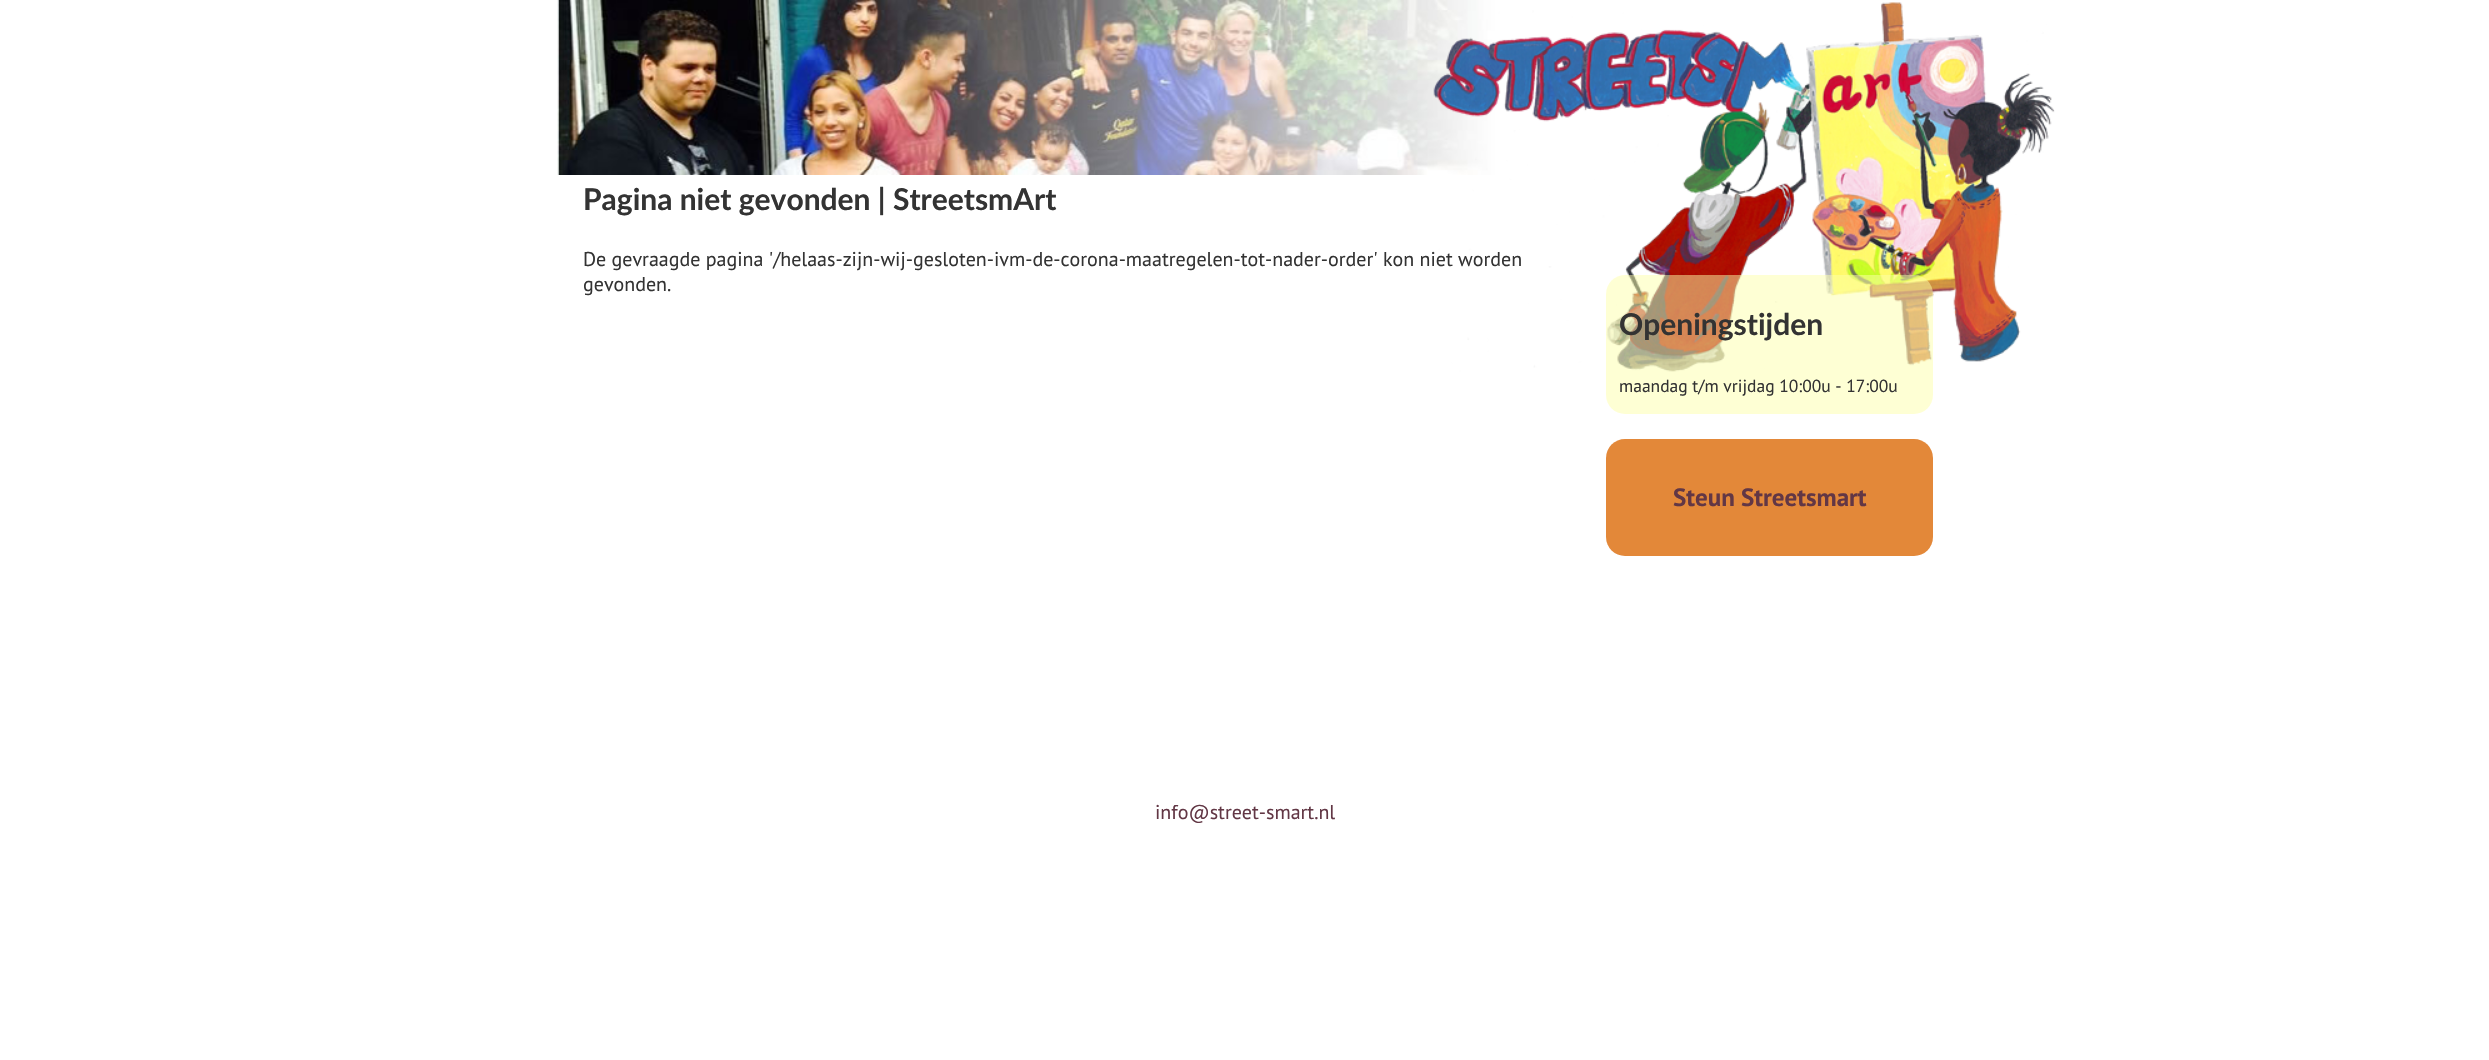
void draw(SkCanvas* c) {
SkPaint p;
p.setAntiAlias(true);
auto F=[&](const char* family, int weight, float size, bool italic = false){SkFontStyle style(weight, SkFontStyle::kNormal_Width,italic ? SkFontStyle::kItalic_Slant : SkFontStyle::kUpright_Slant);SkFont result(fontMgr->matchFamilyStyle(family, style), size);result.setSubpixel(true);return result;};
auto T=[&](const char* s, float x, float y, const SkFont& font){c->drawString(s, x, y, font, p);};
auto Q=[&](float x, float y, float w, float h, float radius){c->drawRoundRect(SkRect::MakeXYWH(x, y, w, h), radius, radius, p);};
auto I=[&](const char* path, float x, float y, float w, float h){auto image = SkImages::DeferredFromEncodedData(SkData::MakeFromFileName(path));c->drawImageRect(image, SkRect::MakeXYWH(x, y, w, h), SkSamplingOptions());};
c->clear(0xffffffff);
I("1.png",557,0,1498,372);
auto f1 = F("Lato",700,30);
p.setColor(0xff333333);
T("Pagina niet gevonden | StreetsmArt",583,210,f1);
auto f2 = F("PT Sans",400,20);
T("De gevraagde pagina '/helaas-zijn-wij-gesloten-ivm-de-corona-maatregelen-tot-nader-order' kon niet worden",583,266,f2);
T("gevonden.",583,291,f2);
p.setColor(0x80fdffaa);
Q(1606,275,327,139,19);
p.setColor(0xff333333);
T("Openingstijden",1619,335,f1);
auto f3 = F("PT Sans",400,17.5);
T("maandag t/m vrijdag 10:00u - 17:00u",1619,392,f3);
p.setColor(0xffe38839);
Q(1606,439,327,117,19);
auto f4 = F("PT Sans",700,25);
p.setColor(0xff623745);
T("Steun Streetsmart",1673,506,f4);
T("info@street-smart.nl",1155,819,f2);
}
